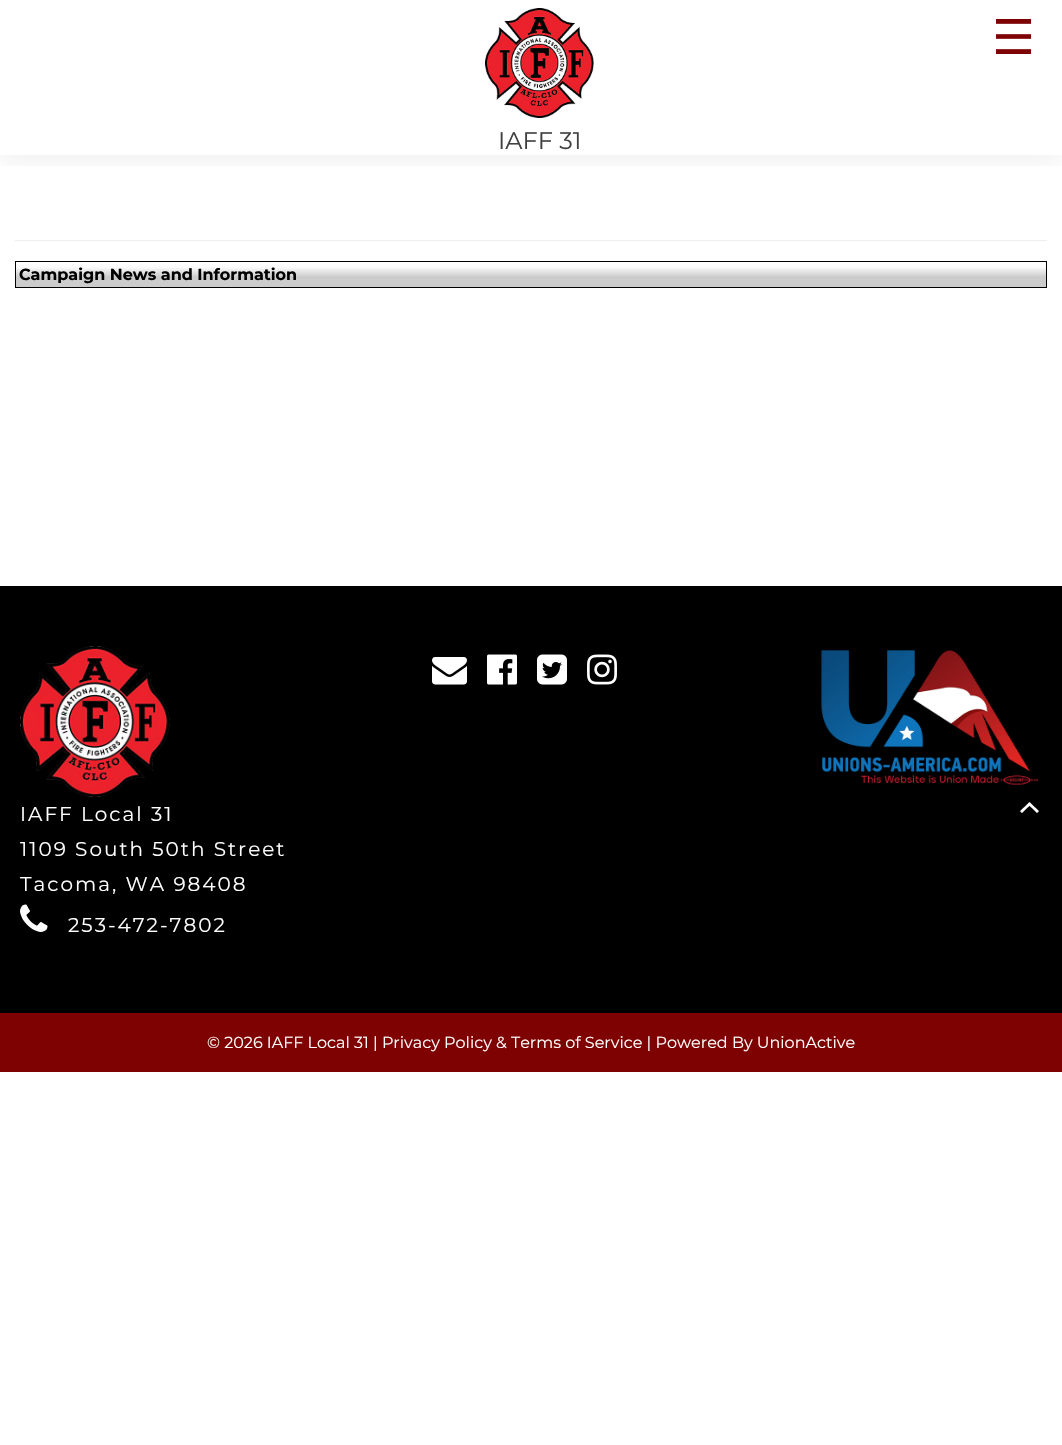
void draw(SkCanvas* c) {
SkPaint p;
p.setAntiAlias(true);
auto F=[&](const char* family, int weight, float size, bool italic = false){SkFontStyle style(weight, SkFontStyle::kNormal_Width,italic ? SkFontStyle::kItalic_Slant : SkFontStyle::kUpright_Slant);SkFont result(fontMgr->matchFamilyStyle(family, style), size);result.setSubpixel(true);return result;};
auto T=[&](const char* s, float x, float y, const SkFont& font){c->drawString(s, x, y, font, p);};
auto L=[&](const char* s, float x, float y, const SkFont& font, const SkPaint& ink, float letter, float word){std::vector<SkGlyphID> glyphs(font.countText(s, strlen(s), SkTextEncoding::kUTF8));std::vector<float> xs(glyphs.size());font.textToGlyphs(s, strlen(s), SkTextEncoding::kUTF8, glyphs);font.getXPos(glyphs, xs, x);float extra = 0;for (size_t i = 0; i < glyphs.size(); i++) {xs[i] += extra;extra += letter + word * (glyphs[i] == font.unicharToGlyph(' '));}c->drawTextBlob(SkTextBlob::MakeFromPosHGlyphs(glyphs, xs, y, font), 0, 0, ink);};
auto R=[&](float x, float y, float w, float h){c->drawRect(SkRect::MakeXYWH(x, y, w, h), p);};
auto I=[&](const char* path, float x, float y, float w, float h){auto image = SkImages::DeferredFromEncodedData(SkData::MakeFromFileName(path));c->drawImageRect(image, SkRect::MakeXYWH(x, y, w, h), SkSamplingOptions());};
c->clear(0xffffffff);
c->save();
c->clipRect(SkRect::MakeXYWH(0,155,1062,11));
p.setColor(0x0f000000);
p.setMaskFilter(SkMaskFilter::MakeBlur(kNormal_SkBlurStyle, 12.5));
c->drawRect(SkRect::MakeXYWH(0,6,1062,155),p);
p.setMaskFilter(nullptr);
c->restore();
auto f1 = F("DejaVu Sans",400,48);
p.setColor(0xff7e0202);
T("☰",992,54,f1);
I("1.png",485,8,109,110);
auto f2 = F("Montserrat",400,24);
p.setColor(0xff404040);
T("IAFF 31",498,149,f2);
p.setColor(0xffeeeeee);
R(15,240,1032,1);
p.setColor(0xff000000);
R(15,261,1032,27);
I("2.png",16,262,1030,25);
auto f3 = F("Montserrat",700,16);
T("Campaign News and Information",19,280,f3);
R(0,586,1062,427);
I("3.png",432,657,35,28);
I("4.png",487,654,30,31);
I("5.png",537,654,30,31);
I("6.png",587,654,30,31);
I("7.png",821,650,217,135);
I("8.png",1020,802,19,11);
I("9.png",20,646,150,151);
auto f4 = F("Montserrat",400,20);
p.setColor(0xffffffff);
L("IAFF Local 31",20,821,f4,p,2,0);
L("1109 South 50th Street",20,856,f4,p,2,0);
L("Tacoma, WA 98408",20,891,f4,p,2,0);
I("10.png",20,904,28,28);
L("253-472-7802",68,932,f4,p,2,0);
p.setColor(0xff7e0202);
R(0,1013,1062,59);
auto f5 = F("Montserrat",400,16);
p.setColor(0xffffffff);
T("© 2026 IAFF Local 31 | Privacy Policy & Terms of Service | Powered By UnionActive",207,1048,f5);
}
